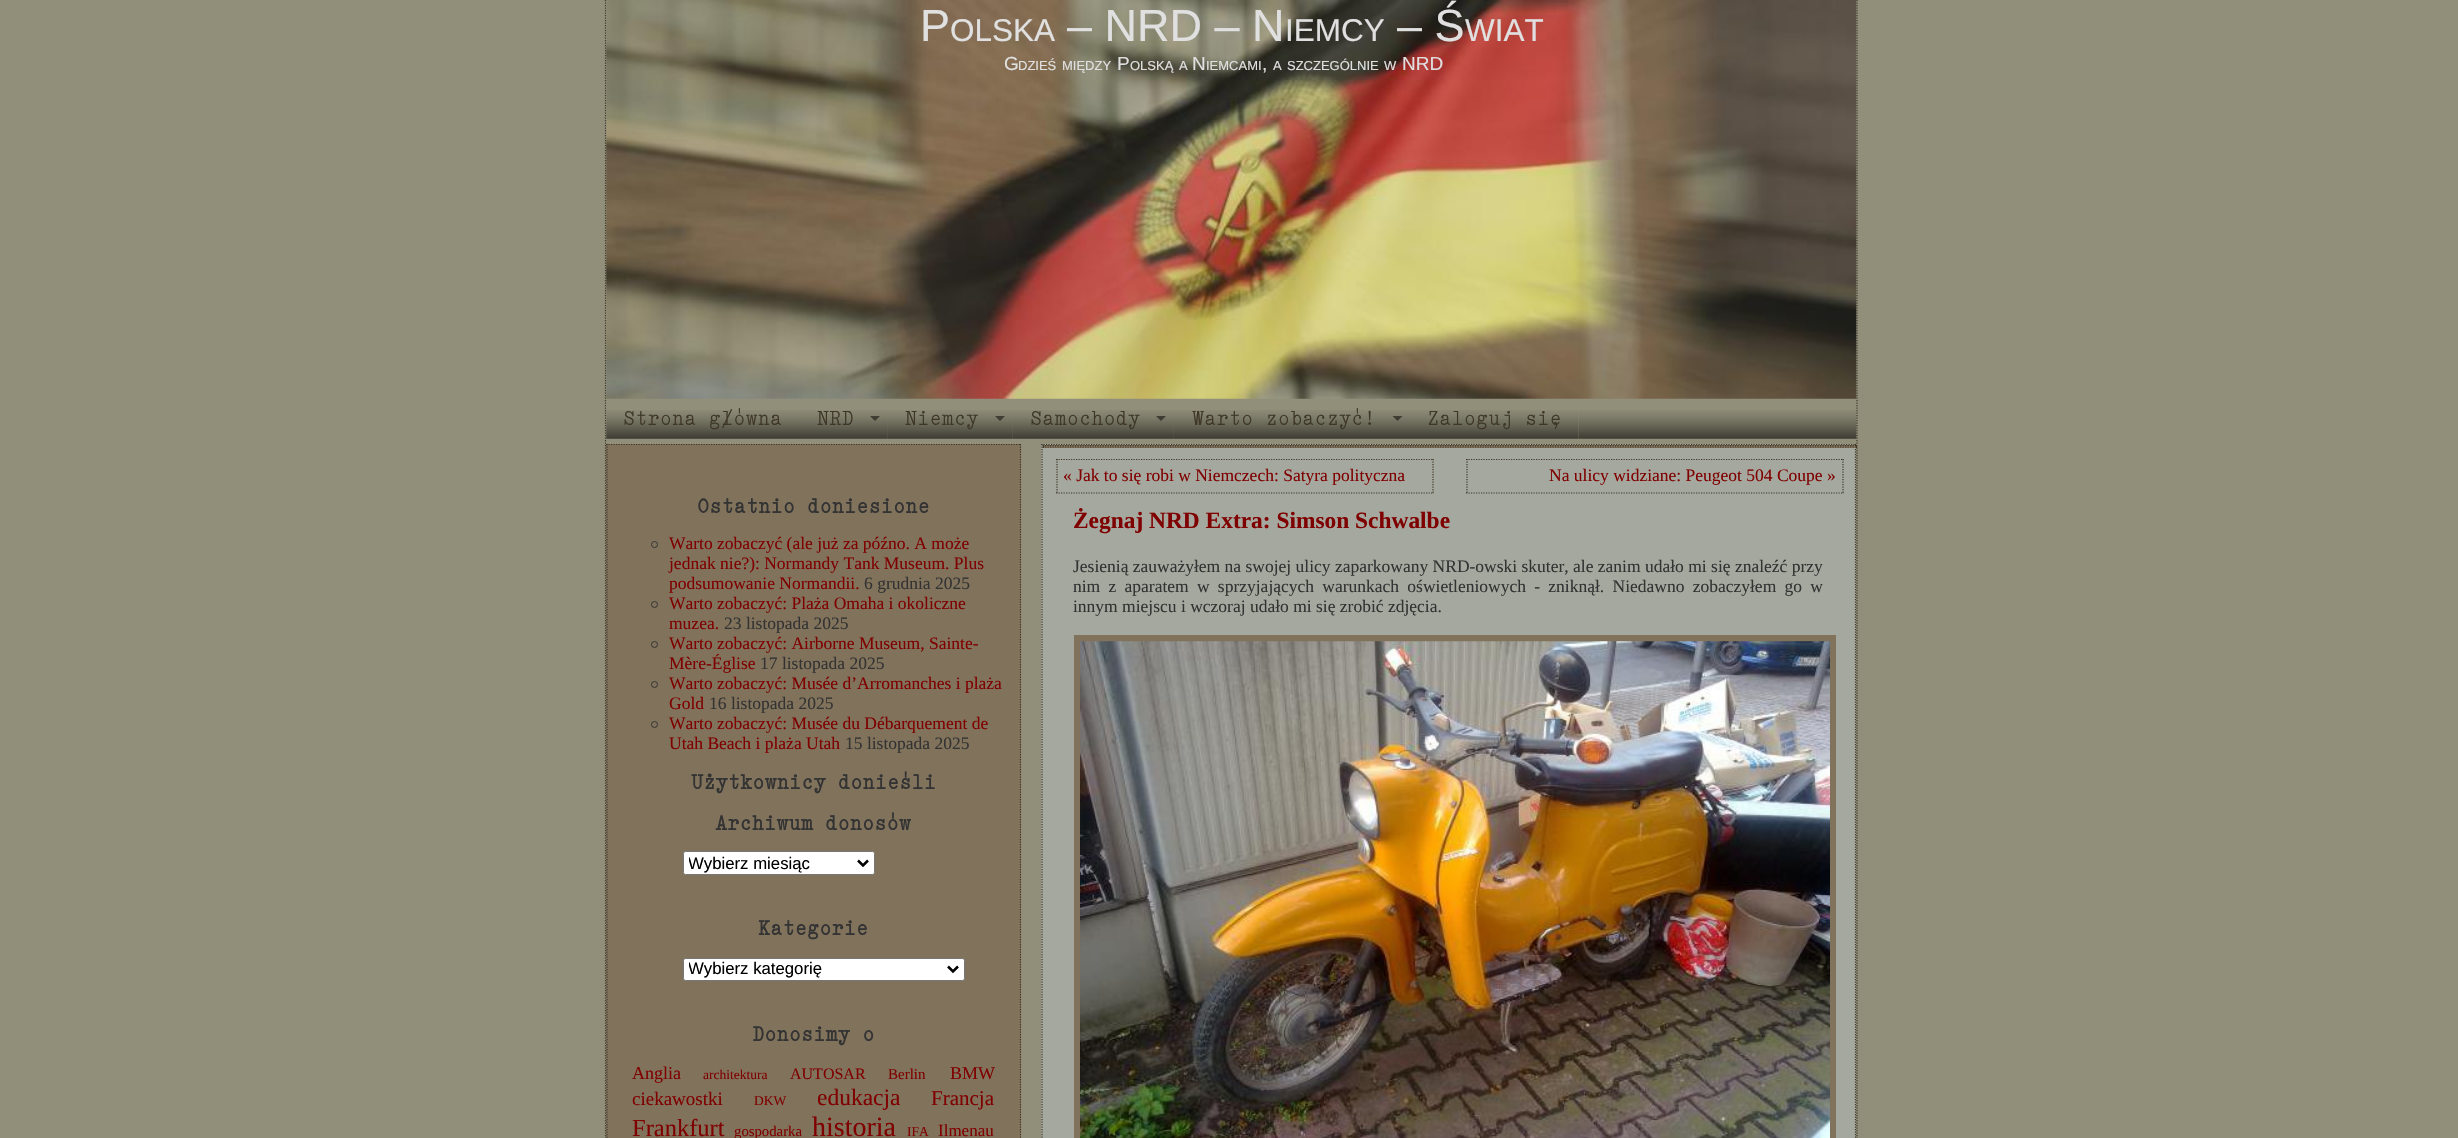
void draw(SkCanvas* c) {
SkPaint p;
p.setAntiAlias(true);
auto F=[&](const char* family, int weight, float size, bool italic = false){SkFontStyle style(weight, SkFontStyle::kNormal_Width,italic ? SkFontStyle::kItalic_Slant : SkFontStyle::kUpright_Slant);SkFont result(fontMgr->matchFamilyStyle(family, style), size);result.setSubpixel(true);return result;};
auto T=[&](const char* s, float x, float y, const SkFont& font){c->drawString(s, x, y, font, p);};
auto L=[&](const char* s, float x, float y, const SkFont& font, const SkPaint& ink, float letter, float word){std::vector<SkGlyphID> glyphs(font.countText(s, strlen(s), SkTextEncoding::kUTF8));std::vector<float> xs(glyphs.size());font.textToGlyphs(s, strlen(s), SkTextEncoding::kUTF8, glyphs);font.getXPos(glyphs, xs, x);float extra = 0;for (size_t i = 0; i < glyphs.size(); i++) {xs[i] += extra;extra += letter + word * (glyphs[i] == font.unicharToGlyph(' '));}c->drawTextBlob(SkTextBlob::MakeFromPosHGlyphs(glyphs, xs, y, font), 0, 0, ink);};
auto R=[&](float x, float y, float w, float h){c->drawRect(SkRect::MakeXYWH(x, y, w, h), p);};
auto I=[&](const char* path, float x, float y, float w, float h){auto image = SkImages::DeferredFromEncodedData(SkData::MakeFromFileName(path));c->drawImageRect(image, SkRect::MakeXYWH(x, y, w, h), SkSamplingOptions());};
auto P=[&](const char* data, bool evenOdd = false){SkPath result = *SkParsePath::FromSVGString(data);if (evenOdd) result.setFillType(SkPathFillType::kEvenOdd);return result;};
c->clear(0xff918f7a);
p.setStroke(true);
p.setStrokeWidth(1.2);
p.setColor(0xff3e3728);
p.setPathEffect(SkDashPathEffect::Make({{1.25f,1.25f}}, 0));
c->drawPath(P("M1857 0v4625"),p);
p.setPathEffect(nullptr);
p.setPathEffect(SkDashPathEffect::Make({{1.25f,1.25f}}, 0));
c->drawPath(P("M605.5 0v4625"),p);
p.setPathEffect(nullptr);
I("1.png",606,0,1251,399);
auto f1 = F("Liberation Sans",400,45);
p.setStroke(false);
p.setColor(0xffe0e0e0);
T("P",920,41,f1);
auto f2 = F("Liberation Sans",400,31.5);
T("OLSKA",950,41,f2);
T("– NRD – N",1067,41,f1);
T("IEMCY",1285,41,f2);
T("– Ś",1397,41,f1);
T("WIAT",1465,41,f2);
auto f3 = F("Liberation Sans",400,19);
T("G",1004,70,f3);
auto f4 = F("Liberation Sans",400,13);
T("DZIEŚ",1018,70,f4);
T("MIĘDZY",1062,70,f4);
T("P",1117,70,f3);
T("OLSKĄ",1130,70,f4);
T("A",1179,70,f4);
T("N",1192,70,f3);
T("IEMCAMI",1206,70,f4);
T("A",1273,70,f4);
T("SZCZEGÓLNIE",1287,70,f4);
T("W",1384,70,f4);
T("NRD",1402,70,f3);
T(",",1262,70,f3);
I("2.png",1579,410,278,29);
p.setColor(0xff918f7a);
R(606,400,1,39);
I("3.png",606,410,194,29);
auto f5 = F("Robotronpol",400,20);
p.setColor(0xff3e3728);
T("Strona główna",623,425,f5);
I("4.png",800,410,88,29);
T("NRD",817,425,f5);
p.setColor(0x80000000);
c->drawPath(P("M870 416h10l-5 5z"),p);
I("5.png",887,410,126,29);
p.setColor(0xff3e3728);
T("Niemcy",905,425,f5);
p.setColor(0x80000000);
c->drawPath(P("M995 416h10l-5 5z"),p);
I("6.png",1012,410,162,29);
p.setColor(0xff3e3728);
T("Samochody",1030,425,f5);
p.setColor(0x80000000);
c->drawPath(P("M1156 416h10l-5 5z"),p);
I("7.png",1173,410,237,29);
p.setColor(0xff3e3728);
T("Warto zobaczyć!",1192,425,f5);
p.setColor(0x80000000);
c->drawPath(P("M1392.5 416h10l-5 5z"),p);
I("8.png",1410,410,169,29);
p.setColor(0xff3e3728);
T("Zaloguj się",1427,425,f5);
p.setColor(0xff81725b);
R(606,444,415,694);
p.setStroke(true);
p.setColor(0xff3e3728);
p.setPathEffect(SkDashPathEffect::Make({{1.25f,1.25f}}, 0));
c->drawPath(P("M606 444.5h415"),p);
p.setPathEffect(nullptr);
p.setPathEffect(SkDashPathEffect::Make({{1.25f,1.25f}}, 0));
c->drawPath(P("M1020.5 444v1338.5"),p);
p.setPathEffect(nullptr);
p.setPathEffect(SkDashPathEffect::Make({{1.25f,1.25f}}, 0));
c->drawPath(P("M607 444v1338.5"),p);
p.setPathEffect(nullptr);
auto f6 = F("Robotronpol",700,20);
p.setStroke(false);
p.setColor(0xff333333);
T("Ostatnio doniesione",697,513,f6);
p.setStroke(true);
p.setStrokeWidth(1);
c->drawCircle(654.5,544.5,3,p);
auto f7 = F("Liberation Serif",400,17.5);
p.setStroke(false);
p.setColor(0xff7f0000);
T("Warto zobaczyć (ale już za późno. A może",669,549,f7);
T("jednak nie?): Normandy Tank Museum. Plus",669,569,f7);
T("podsumowanie Normandii.",669,589,f7);
p.setColor(0xff333333);
T("6 grudnia 2025",864,589,f7);
p.setStroke(true);
c->drawCircle(654.5,604.5,3,p);
p.setStroke(false);
p.setColor(0xff7f0000);
T("Warto zobaczyć: Plaża Omaha i okoliczne",669,609,f7);
T("muzea.",669,629,f7);
p.setColor(0xff333333);
T("23 listopada 2025",724,629,f7);
p.setStroke(true);
c->drawCircle(654.5,644.5,3,p);
p.setStroke(false);
p.setColor(0xff7f0000);
T("Warto zobaczyć: Airborne Museum, Sainte-",669,649,f7);
T("Mère-Église",669,669,f7);
p.setColor(0xff333333);
T("17 listopada 2025",760,669,f7);
p.setStroke(true);
c->drawCircle(654.5,684.5,3,p);
p.setStroke(false);
p.setColor(0xff7f0000);
T("Warto zobaczyć: Musée d’Arromanches i plaża",669,689,f7);
T("Gold",669,709,f7);
p.setColor(0xff333333);
T("16 listopada 2025",709,709,f7);
p.setStroke(true);
c->drawCircle(654.5,724.5,3,p);
p.setStroke(false);
p.setColor(0xff7f0000);
T("Warto zobaczyć: Musée du Débarquement de",669,729,f7);
T("Utah Beach i plaża Utah",669,749,f7);
p.setColor(0xff333333);
T("15 listopada 2025",845,749,f7);
T("Użytkownicy donieśli",691,789,f6);
T("Archiwum donosów",715,830,f6);
p.setColor(0xffffffff);
c->drawRoundRect(SkRect::MakeXYWH(683.5,851.5,191,23),2,2,p);
p.setStroke(true);
p.setColor(0xff767676);
c->drawRoundRect(SkRect::MakeXYWH(683.5,851.5,191,23),2,2,p);
p.setStrokeWidth(2.5);
p.setColor(0xff000000);
c->drawPath(P("M858 860.5l5 5l5-5"),p);
c->save();
c->clipRect(SkRect::MakeXYWH(689,853,165,21));
auto f8 = F("Liberation Sans",400,16.75);
p.setStroke(false);
T("Wybierz miesiąc",688,869,f8);
c->restore();
p.setColor(0xff333333);
T("Kategorie",758,935,f6);
p.setColor(0xffffffff);
c->drawRoundRect(SkRect::MakeXYWH(683.5,958.5,281,22),2,2,p);
p.setStroke(true);
p.setStrokeWidth(1);
p.setColor(0xff767676);
c->drawRoundRect(SkRect::MakeXYWH(683.5,958.5,281,22),2,2,p);
p.setStrokeWidth(2.5);
p.setColor(0xff000000);
c->drawPath(P("M948 966.5l5 5l5-5"),p);
c->save();
c->clipRect(SkRect::MakeXYWH(689,959,255,21));
p.setStroke(false);
T("Wybierz kategorię",688,974,f8);
c->restore();
p.setColor(0xff333333);
T("Donosimy o",752,1041,f6);
auto f9 = F("Liberation Serif",400,18);
p.setColor(0xff7f0000);
T("Anglia",632,1079,f9);
auto f10 = F("Liberation Serif",400,13.5);
T("architektura",703,1079,f10);
auto f11 = F("Liberation Serif",400,16);
T("AUTOSAR",790,1079,f11);
auto f12 = F("Liberation Serif",400,15);
T("Berlin",888,1079,f12);
T("BMW",950,1079,f9);
auto f13 = F("Liberation Serif",400,19);
T("ciekawostki",632,1105,f13);
T("DKW",754,1105,f10);
auto f14 = F("Liberation Serif",400,23.5);
T("edukacja",817,1105,f14);
auto f15 = F("Liberation Serif",400,21);
T("Francja",931,1105,f15);
auto f16 = F("Liberation Serif",400,24.5);
T("Frankfurt",632,1136,f16);
auto f17 = F("Liberation Serif",400,14.75);
T("gospodarka",734,1136,f17);
auto f18 = F("Liberation Serif",400,28);
T("historia",812,1136,f18);
T("IFA",907,1136,f10);
auto f19 = F("Liberation Serif",400,17);
T("Ilmenau",938,1136,f19);
p.setColor(0xffa5a89e);
R(1041,444,815,694);
p.setStroke(true);
p.setStrokeWidth(1.2);
p.setColor(0xff3e3728);
p.setPathEffect(SkDashPathEffect::Make({{1.25f,1.25f}}, 0));
c->drawPath(P("M1041 444.5h815"),p);
p.setPathEffect(nullptr);
p.setPathEffect(SkDashPathEffect::Make({{1.25f,1.25f}}, 0));
c->drawPath(P("M1855.5 444v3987"),p);
p.setPathEffect(nullptr);
p.setPathEffect(SkDashPathEffect::Make({{1.25f,1.25f}}, 0));
c->drawPath(P("M1042 444v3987"),p);
p.setPathEffect(nullptr);
p.setStroke(false);
p.setColor(0xff81725b);
R(1043,445,815,3);
p.setStroke(true);
p.setColor(0xff3e3728);
p.setPathEffect(SkDashPathEffect::Make({{1.25f,1.25f}}, 0));
c->drawPath(P("M1042.5 445.5h815"),p);
p.setPathEffect(nullptr);
p.setStroke(false);
R(1856,445,1,3);
p.setStroke(true);
p.setPathEffect(SkDashPathEffect::Make({{1.25f,1.25f}}, 0));
c->drawPath(P("M1042.5 447h815"),p);
p.setPathEffect(nullptr);
p.setStroke(false);
R(1043,445,1,3);
p.setStroke(true);
p.setPathEffect(SkDashPathEffect::Make({{1.25f,1.25f}}, 0));
c->drawPath(P("M1056 459.5h378"),p);
p.setPathEffect(nullptr);
p.setPathEffect(SkDashPathEffect::Make({{1.25f,1.25f}}, 0));
c->drawPath(P("M1433 459v35"),p);
p.setPathEffect(nullptr);
p.setPathEffect(SkDashPathEffect::Make({{1.25f,1.25f}}, 0));
c->drawPath(P("M1056 493h378"),p);
p.setPathEffect(nullptr);
p.setPathEffect(SkDashPathEffect::Make({{1.25f,1.25f}}, 0));
c->drawPath(P("M1057 459v35"),p);
p.setPathEffect(nullptr);
p.setStroke(false);
p.setColor(0xff7f0000);
T("« Jak to się robi w Niemczech: Satyra polityczna",1063,481,f7);
p.setStroke(true);
p.setColor(0xff3e3728);
p.setPathEffect(SkDashPathEffect::Make({{1.25f,1.25f}}, 0));
c->drawPath(P("M1466 459.5h378"),p);
p.setPathEffect(nullptr);
p.setPathEffect(SkDashPathEffect::Make({{1.25f,1.25f}}, 0));
c->drawPath(P("M1843 459v35"),p);
p.setPathEffect(nullptr);
p.setPathEffect(SkDashPathEffect::Make({{1.25f,1.25f}}, 0));
c->drawPath(P("M1466 493h378"),p);
p.setPathEffect(nullptr);
p.setPathEffect(SkDashPathEffect::Make({{1.25f,1.25f}}, 0));
c->drawPath(P("M1467 459v35"),p);
p.setPathEffect(nullptr);
p.setStroke(false);
p.setColor(0xff7f0000);
T("Na ulicy widziane: Peugeot 504 Coupe »",1549,481,f7);
auto f20 = F("Liberation Serif",700,23.4);
T("Żegnaj NRD Extra: Simson Schwalbe",1073,528,f20);
p.setColor(0xff333333);
T("Jesienią zauważyłem na swojej ulicy zaparkowany NRD-owski skuter, ale zanim udało mi się znaleźć przy",1073,572,f7);
L("nim z aparatem w sprzyjających warunkach oświetleniowych - zniknął. Niedawno zobaczyłem go w",1073,592,f7,p,0,3.9);
T("innym miejscu i wczoraj udało mi się zrobić zdjęcia.",1073,612,f7);
p.setColor(0xff81725b);
R(1074,635,762,503);
I("9.png",1080,641,750,497);
}
